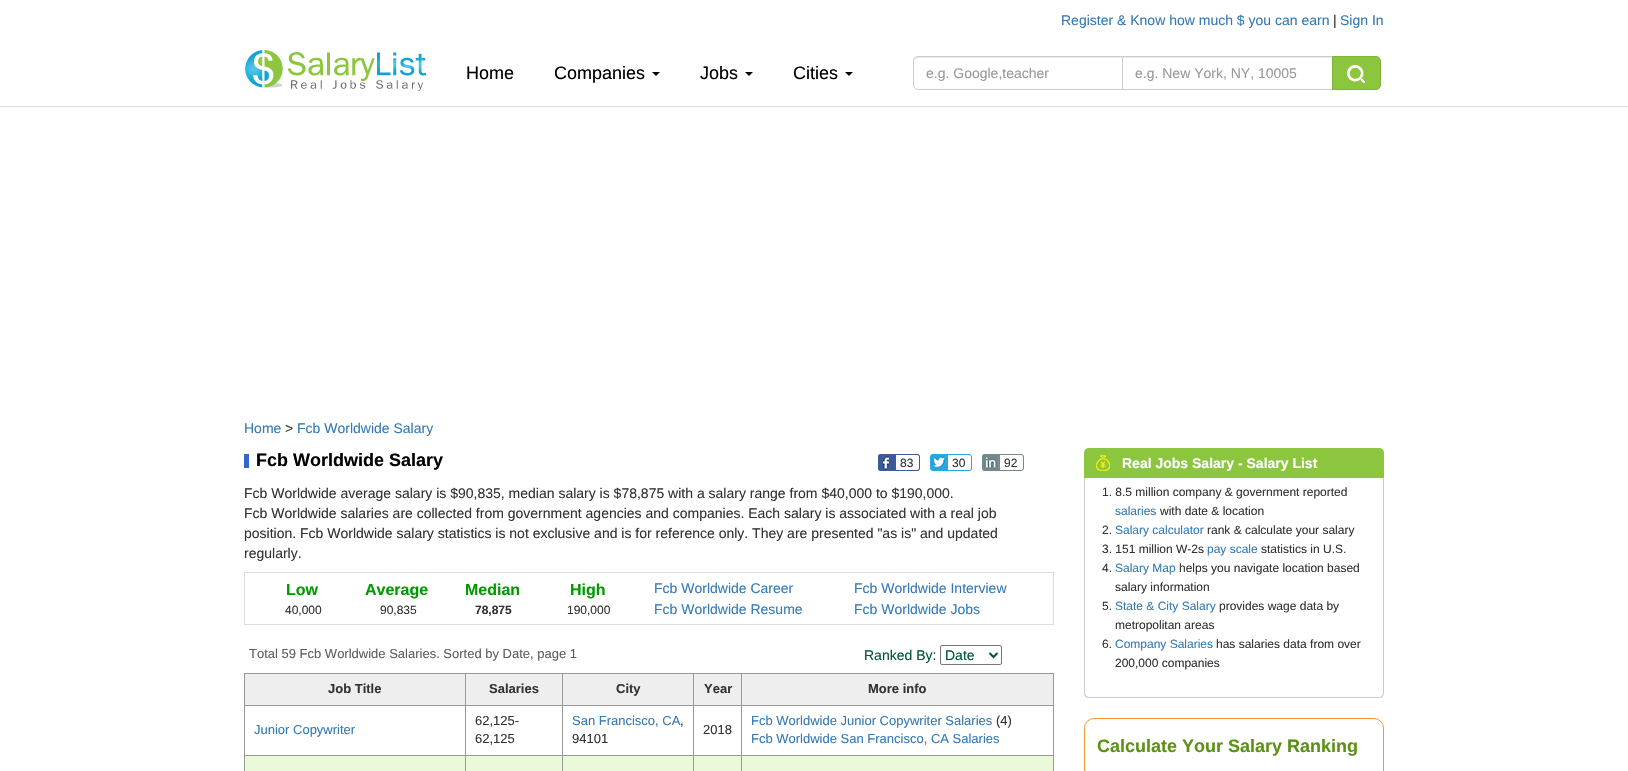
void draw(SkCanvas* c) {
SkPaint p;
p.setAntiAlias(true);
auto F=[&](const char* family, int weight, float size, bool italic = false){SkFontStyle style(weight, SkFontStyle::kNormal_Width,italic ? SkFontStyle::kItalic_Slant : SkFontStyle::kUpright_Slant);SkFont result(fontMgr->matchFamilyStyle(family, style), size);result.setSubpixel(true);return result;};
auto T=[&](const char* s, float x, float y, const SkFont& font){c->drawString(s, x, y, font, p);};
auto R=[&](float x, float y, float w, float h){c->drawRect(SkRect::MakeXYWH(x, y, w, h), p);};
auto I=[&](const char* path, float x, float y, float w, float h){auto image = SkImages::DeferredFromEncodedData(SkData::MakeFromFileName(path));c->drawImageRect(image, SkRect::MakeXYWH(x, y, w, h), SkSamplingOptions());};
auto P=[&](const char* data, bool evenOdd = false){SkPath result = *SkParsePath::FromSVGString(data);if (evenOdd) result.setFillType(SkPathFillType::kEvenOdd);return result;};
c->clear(0xffffffff);
auto f1 = F("Liberation Sans",400,14);
p.setColor(0xff337ab7);
T("Register & Know how much $ you can earn",1061,25,f1);
p.setColor(0xff333333);
T("|",1333,25,f1);
p.setColor(0xff337ab7);
T("Sign In",1340,25,f1);
p.setColor(0xffdadada);
R(0,106,1628,1);
I("1.png",245,50,181,41);
auto f2 = F("Liberation Sans",400,18);
p.setColor(0xff000000);
T("Home",466,79,f2);
T("Companies",554,79,f2);
c->drawPath(P("M652 72h8l-4 4z"),p);
T("Jobs",700,79,f2);
c->drawPath(P("M745 72h8l-4 4z"),p);
T("Cities",793,79,f2);
c->drawPath(P("M845 72h8l-4 4z"),p);
p.setColor(0xffececec);
c->drawPath(P("M918 58h204v-1h-206c-2 1-2 3-2 5c0-2 2-4 4-4z"),p);
p.setStroke(true);
p.setStrokeWidth(1);
p.setColor(0xffcccccc);
c->drawPath(P("M918 56.5h204.5v33h-204.5c-2.5 0-4.5-2-4.5-4.5v-24c0-2.5 2-4.5 4.5-4.5z"),p);
p.setStroke(false);
p.setColor(0xff999999);
T("e.g. Google,teacher",926,78,f1);
p.setColor(0xffececec);
R(1123,57,209,1);
p.setColor(0xffcccccc);
R(1123,56,210,1);
R(1123,89,210,1);
p.setColor(0xff999999);
T("e.g. New York, NY, 10005",1135,78,f1);
p.setColor(0xff8cc63f);
c->drawPath(P("M1332.5 56.5h43.5c2.5 0 4.5 2 4.5 4.5v24c0 2.5-2 4.5-4.5 4.5h-43.5z"),p);
p.setStroke(true);
p.setColor(0xff7eb239);
c->drawPath(P("M1332.5 56.5h43.5c2.5 0 4.5 2 4.5 4.5v24c0 2.5-2 4.5-4.5 4.5h-43.5z"),p);
I("2.png",1347,65,18,18);
p.setStroke(false);
p.setColor(0xff337ab7);
T("Home",244,433,f1);
p.setColor(0xff333333);
T(">",285,433,f1);
p.setColor(0xff337ab7);
T("Fcb Worldwide Salary",297,433,f1);
p.setColor(0xff3366cc);
R(244,454,5,14);
auto f3 = F("Liberation Sans",700,18);
p.setColor(0xff000000);
T("Fcb Worldwide Salary",256,466,f3);
I("3.png",878,454,42,17);
auto f4 = F("Liberation Sans",400,12);
p.setColor(0xff333333);
T("83",900,467,f4);
I("4.png",930,454,42,17);
T("30",952,467,f4);
I("5.png",982,454,42,17);
T("92",1004,467,f4);
T("Fcb Worldwide average salary is $90,835, median salary is $78,875 with a salary range from $40,000 to $190,000.",244,498,f1);
T("Fcb Worldwide salaries are collected from government agencies and companies. Each salary is associated with a real job",244,518,f1);
T("position. Fcb Worldwide salary statistics is not exclusive and is for reference only. They are presented \"as is\" and updated",244,538,f1);
T("regularly.",244,558,f1);
p.setStroke(true);
p.setColor(0xffdddddd);
c->drawRect(SkRect::MakeXYWH(244.5,572.5,809,52),p);
auto f5 = F("Liberation Sans",700,16);
p.setStroke(false);
p.setColor(0xff009900);
T("Low",286,595,f5);
p.setColor(0xff333333);
T("40,000",285,614,f4);
p.setColor(0xff009900);
T("Average",365,595,f5);
p.setColor(0xff333333);
T("90,835",380,614,f4);
p.setColor(0xff009900);
T("Median",465,595,f5);
auto f6 = F("Liberation Sans",700,12);
p.setColor(0xff333333);
T("78,875",475,614,f6);
p.setColor(0xff009900);
T("High",570,595,f5);
p.setColor(0xff333333);
T("190,000",567,614,f4);
p.setColor(0xff337ab7);
T("Fcb Worldwide Career",654,593,f1);
T("Fcb Worldwide Interview",854,593,f1);
T("Fcb Worldwide Resume",654,614,f1);
T("Fcb Worldwide Jobs",854,614,f1);
auto f7 = F("Liberation Sans",400,13);
p.setColor(0xff5e5e5e);
T("Total 59 Fcb Worldwide Salaries. Sorted by Date, page 1",249,658,f7);
p.setColor(0xff005632);
T("Ranked By:",864,660,f1);
p.setStroke(true);
p.setColor(0xff767676);
c->drawRoundRect(SkRect::MakeXYWH(940.5,645.5,61,19),1.5,1.5,p);
p.setStrokeWidth(2);
p.setColor(0xff005632);
c->drawPath(P("M989.5 653l4 4l4-4"),p);
p.setStroke(false);
T("Date",945,660,f1);
p.setColor(0xff999999);
R(244,673,810,1);
R(244,673,1,98);
p.setColor(0xffeaf9d7);
R(245,756,808,15);
p.setColor(0xff999999);
R(465,755,1,16);
R(562,755,1,16);
R(693,755,1,16);
R(741,755,1,16);
R(1053,673,1,98);
p.setColor(0xffeeeeee);
R(245,674,808,31);
p.setColor(0xff999999);
R(741,755,313,1);
R(741,705,1,51);
R(741,705,313,1);
R(741,673,1,33);
R(693,755,49,1);
R(693,705,1,51);
R(693,705,49,1);
R(693,673,1,33);
R(562,755,132,1);
R(562,705,1,51);
R(562,705,132,1);
R(562,673,1,33);
R(465,755,98,1);
R(465,705,1,51);
R(465,705,98,1);
R(465,673,1,33);
R(244,705,222,1);
auto f8 = F("Liberation Sans",700,13);
p.setColor(0xff333333);
T("Job Title",328,693,f8);
T("Salaries",489,693,f8);
T("City",616,693,f8);
T("Year",704,693,f8);
T("More info",868,693,f8);
p.setColor(0xff999999);
R(244,755,222,1);
p.setColor(0xff337ab7);
T("Junior Copywriter",254,734,f7);
p.setColor(0xff333333);
T("62,125-",475,725,f7);
T("62,125",475,743,f7);
p.setColor(0xff337ab7);
T("San Francisco, CA",572,725,f7);
p.setColor(0xff333333);
T(",",680,725,f7);
T("94101",572,743,f7);
T("2018",703,734,f7);
p.setColor(0xff337ab7);
T("Fcb Worldwide Junior Copywriter Salaries",751,725,f7);
p.setColor(0xff333333);
T("(4)",996,725,f7);
p.setColor(0xff337ab7);
T("Fcb Worldwide San Francisco, CA Salaries",751,743,f7);
p.setColor(0xff8cc63f);
c->drawPath(P("M1089 448h290c3 0 5 2 5 5v25h-300v-25c0-3 2-5 5-5z"),p);
I("6.png",1096,455,14,16);
auto f9 = F("Liberation Sans",700,14);
p.setColor(0xffffffff);
T("Real Jobs Salary - Salary List",1122,468,f9);
p.setColor(0xffcccccc);
c->drawPath(P("M1084 478h300v215c0 3-2 5-5 5h-290c-3 0-5-2-5-5zm1 0h298v215c0 2-2 4-4 4h-290c-2 0-4-2-4-4z",true),p);
p.setColor(0xff333333);
T("1. 8.5 million company & government reported",1102,496,f4);
p.setColor(0xff337ab7);
T("salaries",1115,515,f4);
p.setColor(0xff333333);
T("with date & location",1160,515,f4);
T("2.",1102,534,f4);
p.setColor(0xff337ab7);
T("Salary calculator",1115,534,f4);
p.setColor(0xff333333);
T("rank & calculate your salary",1207,534,f4);
T("3. 151 million W-2s",1102,553,f4);
p.setColor(0xff337ab7);
T("pay scale",1207,553,f4);
p.setColor(0xff333333);
T("statistics in U.S.",1261,553,f4);
T("4.",1102,572,f4);
p.setColor(0xff337ab7);
T("Salary Map",1115,572,f4);
p.setColor(0xff333333);
T("helps you navigate location based",1179,572,f4);
T("salary information",1115,591,f4);
T("5.",1102,610,f4);
p.setColor(0xff337ab7);
T("State & City Salary",1115,610,f4);
p.setColor(0xff333333);
T("provides wage data by",1219,610,f4);
T("metropolitan areas",1115,629,f4);
T("6.",1102,648,f4);
p.setColor(0xff337ab7);
T("Company Salaries",1115,648,f4);
p.setColor(0xff333333);
T("has salaries data from over",1216,648,f4);
T("200,000 companies",1115,667,f4);
p.setStroke(true);
p.setStrokeWidth(1);
p.setColor(0xfff49836);
c->drawRoundRect(SkRect::MakeXYWH(1084.5,718.5,299,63),9.5,9.5,p);
p.setStroke(false);
p.setColor(0xff5c9116);
T("Calculate Your Salary Ranking",1097,752,f3);
}
